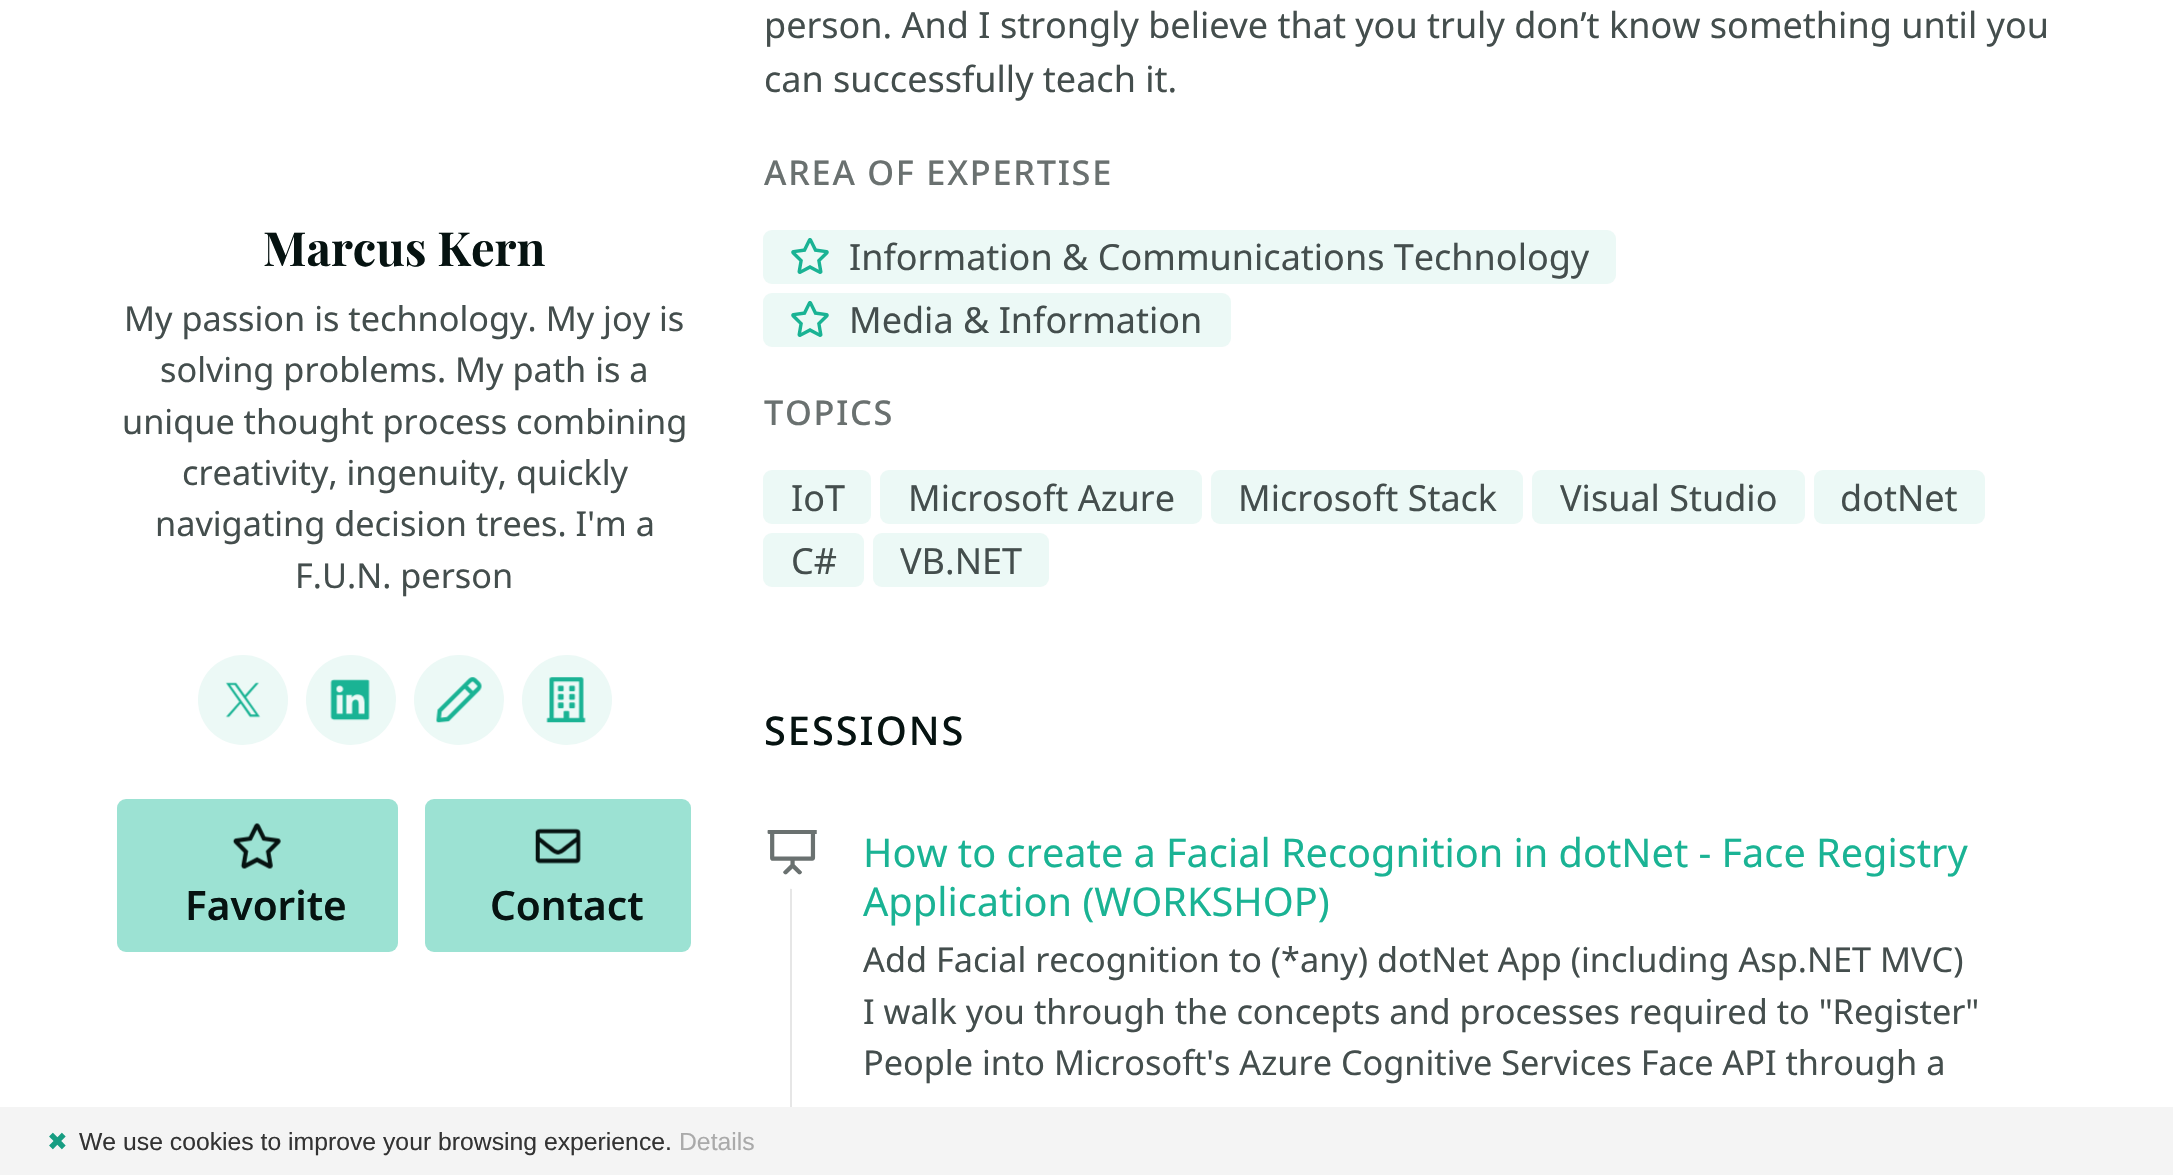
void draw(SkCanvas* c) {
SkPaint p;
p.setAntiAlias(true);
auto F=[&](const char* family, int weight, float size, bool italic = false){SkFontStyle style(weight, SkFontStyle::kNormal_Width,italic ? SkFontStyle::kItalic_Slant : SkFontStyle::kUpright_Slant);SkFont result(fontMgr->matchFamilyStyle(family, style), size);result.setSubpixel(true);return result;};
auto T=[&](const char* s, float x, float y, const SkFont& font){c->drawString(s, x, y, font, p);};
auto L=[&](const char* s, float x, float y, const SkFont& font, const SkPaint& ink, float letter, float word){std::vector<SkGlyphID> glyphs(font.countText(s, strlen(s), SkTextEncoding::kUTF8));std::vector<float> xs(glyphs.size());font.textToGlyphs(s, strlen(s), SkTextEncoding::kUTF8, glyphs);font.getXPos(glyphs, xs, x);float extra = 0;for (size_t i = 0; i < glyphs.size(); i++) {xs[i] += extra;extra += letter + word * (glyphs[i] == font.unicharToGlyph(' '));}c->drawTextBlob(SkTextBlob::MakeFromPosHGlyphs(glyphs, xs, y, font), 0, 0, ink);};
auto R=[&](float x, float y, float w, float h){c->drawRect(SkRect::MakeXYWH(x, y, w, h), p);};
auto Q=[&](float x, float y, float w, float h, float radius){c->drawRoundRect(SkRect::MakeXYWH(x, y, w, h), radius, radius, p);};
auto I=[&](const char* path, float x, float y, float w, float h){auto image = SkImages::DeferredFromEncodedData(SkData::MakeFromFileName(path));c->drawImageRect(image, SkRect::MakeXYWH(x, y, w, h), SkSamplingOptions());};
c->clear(0xffffffff);
auto f1 = F("Playfair Display",700,47);
p.setColor(0xff061311);
T("Marcus Kern",263,266,f1);
auto f2 = F("Noto Sans",400,34.25);
p.setColor(0xff444e4d);
T("My passion is technology. My joy is",124,331,f2);
T("solving problems. My path is a",160,382,f2);
T("unique thought process combining",122,434,f2);
T("creativity, ingenuity, quickly",182,485,f2);
T("navigating decision trees. I'm a",155,536,f2);
T("F.U.N. person",295,588,f2);
p.setColor(0xffecf9f6);
c->drawCircle(243,700,45,p);
I("1.png",225,682,36,36);
c->drawCircle(351,700,45,p);
I("2.png",330,679,40,42);
c->drawCircle(459,700,45,p);
I("3.png",436,677,46,46);
c->drawCircle(567,700,45,p);
I("4.png",546,677,40,46);
p.setColor(0xff9ce2d3);
Q(117,799,281,153,9);
I("5.png",232,823,49,46);
auto f3 = F("Noto Sans",600,40.5);
p.setColor(0xff061311);
T("Favorite",185,920,f3);
p.setColor(0xff9ce2d3);
Q(425,799,266,153,9);
I("6.png",535,828,46,36);
p.setColor(0xff061311);
T("Contact",490,920,f3);
auto f4 = F("Noto Sans",400,36);
p.setColor(0xff444e4d);
T("person. And I strongly believe that you truly don’t know something until you",764,38,f4);
T("can successfully teach it.",764,92,f4);
auto f5 = F("Noto Sans",500,34.25);
p.setColor(0xff6a7170);
L("AREA OF EXPERTISE",764,185,f5,p,1.75,0);
p.setColor(0xffecf9f6);
Q(763,230,853,54,9);
I("7.png",791,238,38,36);
p.setColor(0xff444e4d);
T("Information & Communications Technology",849,270,f4);
p.setColor(0xffecf9f6);
Q(763,293,468,54,9);
I("7.png",791,301,38,36);
p.setColor(0xff444e4d);
T("Media & Information",849,333,f4);
p.setColor(0xff6a7170);
L("TOPICS",764,425,f5,p,1.75,0);
p.setColor(0xffecf9f6);
Q(763,470,108,54,9);
p.setColor(0xff444e4d);
T("IoT",791,511,f4);
p.setColor(0xffecf9f6);
Q(880,470,322,54,9);
p.setColor(0xff444e4d);
T("Microsoft Azure",908,511,f4);
p.setColor(0xffecf9f6);
Q(1211,470,312,54,9);
p.setColor(0xff444e4d);
T("Microsoft Stack",1238,511,f4);
p.setColor(0xffecf9f6);
Q(1532,470,273,54,9);
p.setColor(0xff444e4d);
T("Visual Studio",1560,511,f4);
p.setColor(0xffecf9f6);
Q(1814,470,171,54,9);
p.setColor(0xff444e4d);
T("dotNet",1840,511,f4);
p.setColor(0xffecf9f6);
Q(763,533,101,54,9);
p.setColor(0xff444e4d);
T("C#",791,574,f4);
p.setColor(0xffecf9f6);
Q(873,533,176,54,9);
p.setColor(0xff444e4d);
T("VB.NET",900,574,f4);
auto f6 = F("Noto Sans",500,39.7);
p.setColor(0xff061311);
L("SESSIONS",764,745,f6,p,2,0);
p.setColor(0xffe6e6e6);
R(790,888,2,219);
p.setColor(0xffffffff);
c->drawCircle(792,853,36,p);
I("8.png",767,830,50,45);
auto f7 = F("Noto Sans",400,39.7);
p.setColor(0xff1ab394);
L("How to create a Facial Recognition in dotNet - Face Registry",863,867,f7,p,0,-.1);
T("Application (WORKSHOP)",863,916,f7);
p.setColor(0xff444e4d);
T("Add Facial recognition to (*any) dotNet App (including Asp.NET MVC)",863,972,f2);
T("I walk you through the concepts and processes required to \"Register\"",863,1024,f2);
T("People into Microsoft's Azure Cognitive Services Face API through a",863,1075,f2);
p.setColor(0xfff4f4f4);
R(0,1107,2173,68);
auto f8 = F("DejaVu Sans",400,24.75);
p.setColor(0xff179d82);
T("✖",47,1150,f8);
auto f9 = F("Liberation Sans",400,24.75);
p.setColor(0xff333333);
T("We use cookies to improve your browsing experience.",79,1150,f9);
p.setColor(0xffaaaaaa);
T("Details",679,1150,f9);
}
